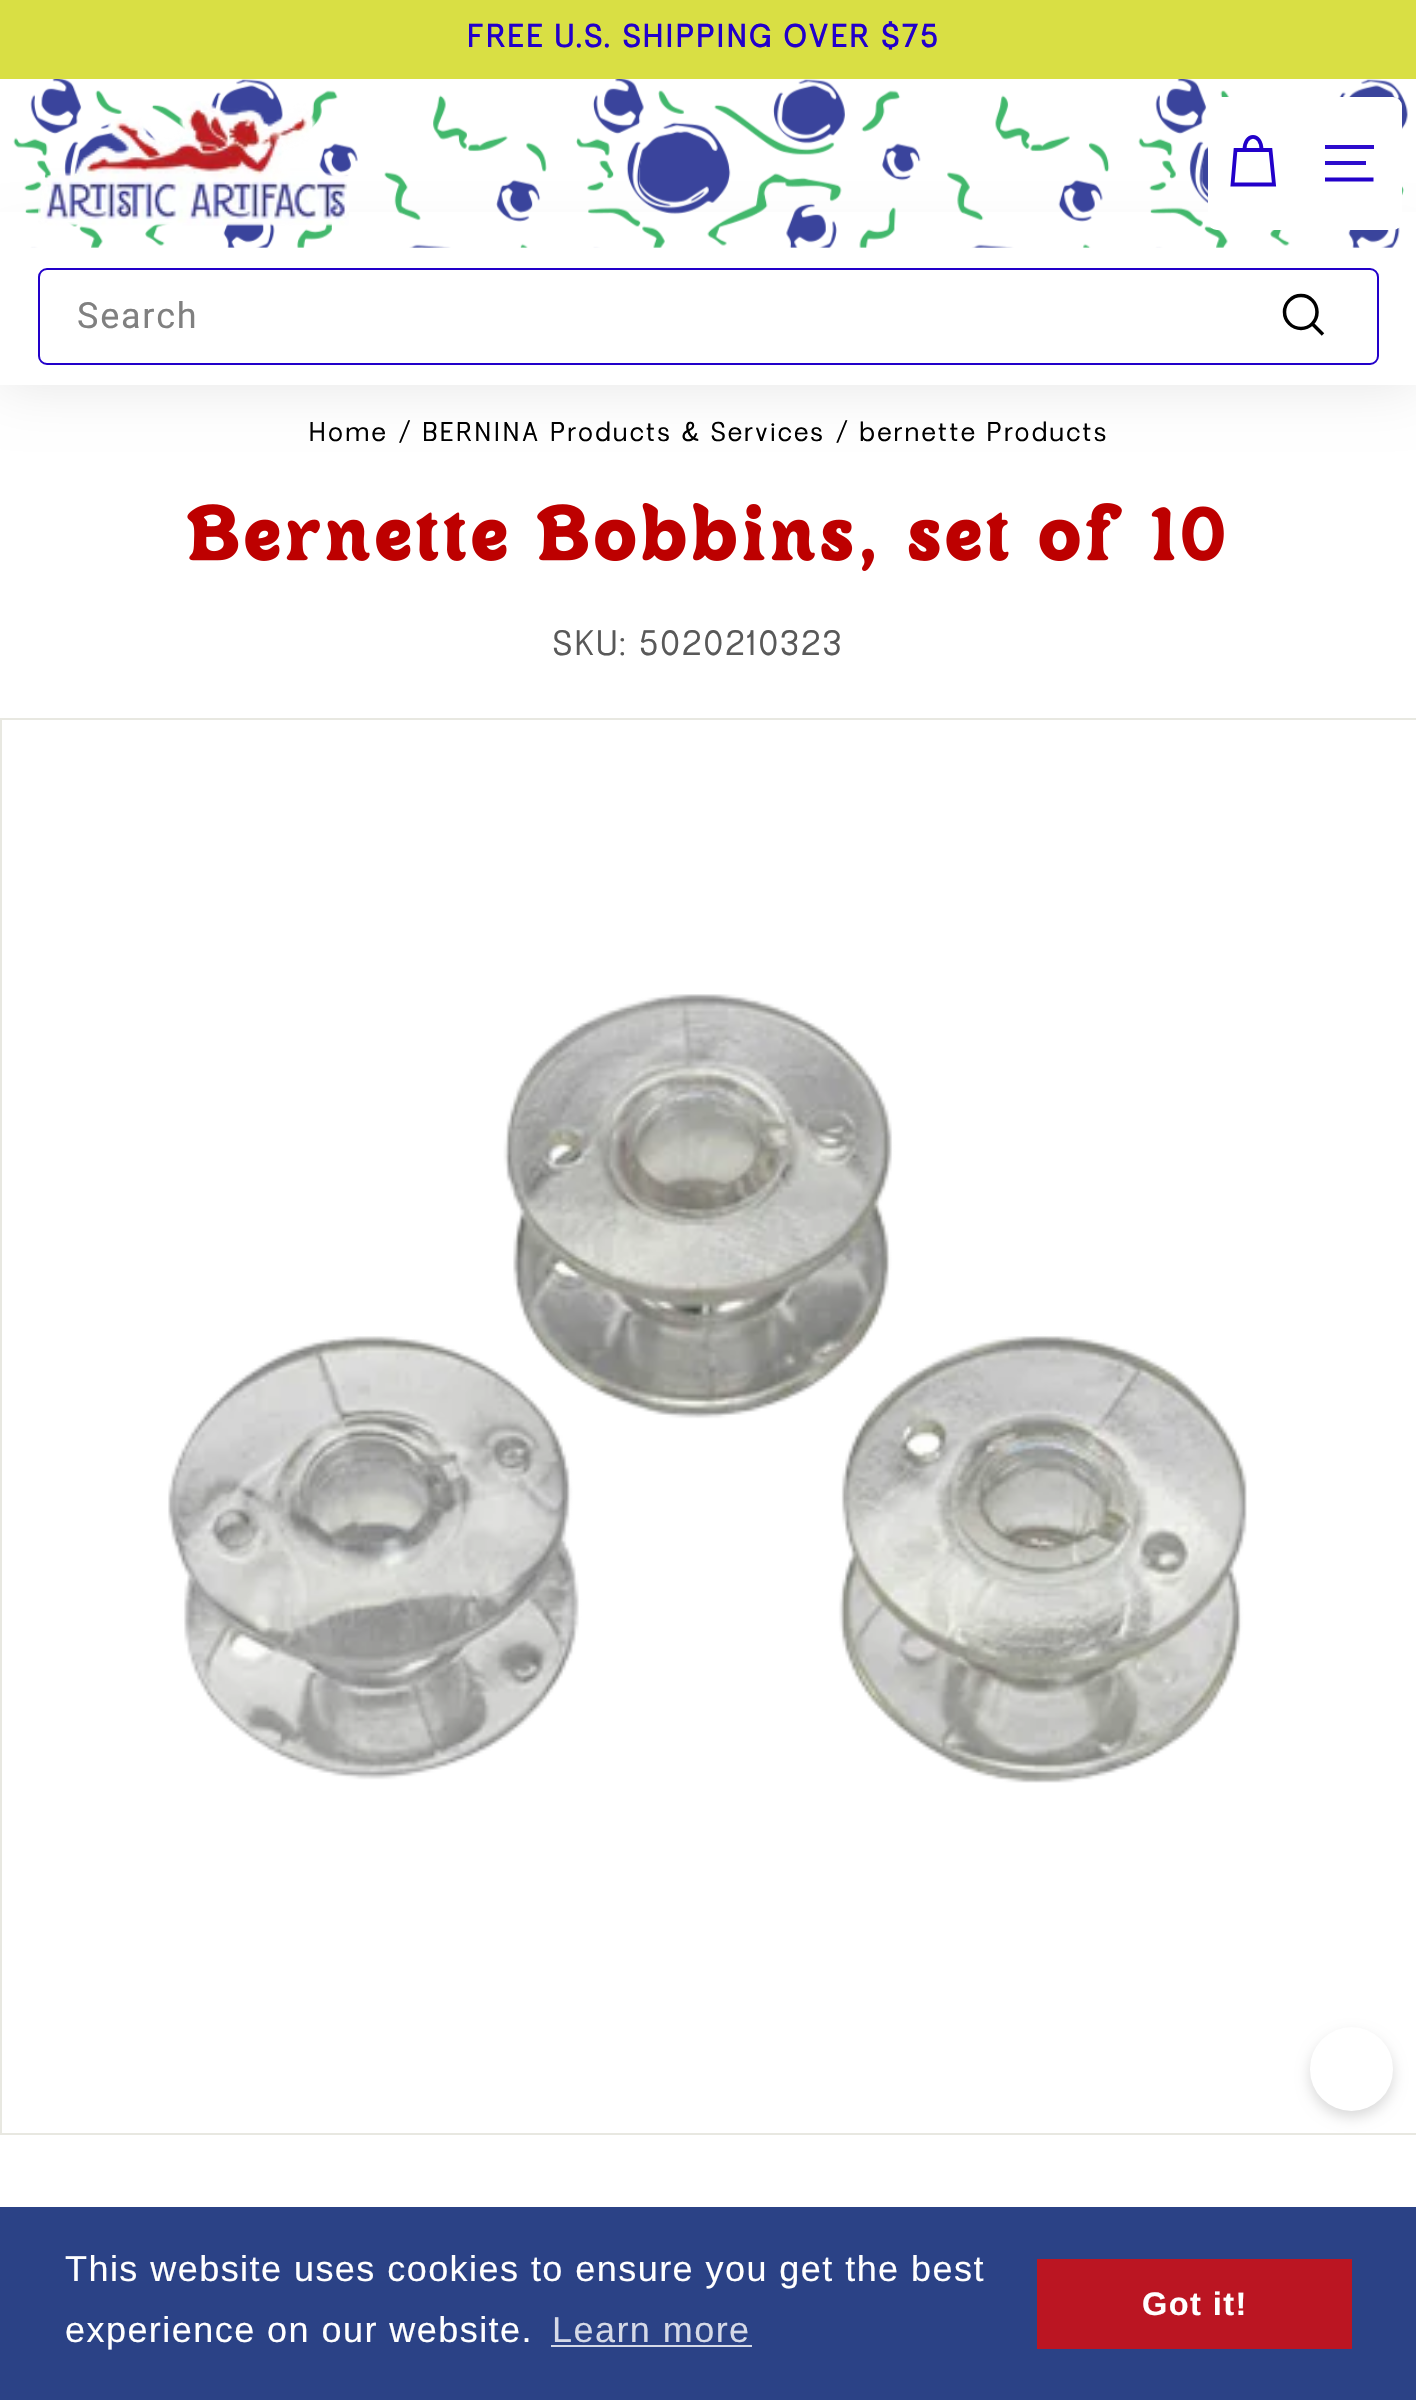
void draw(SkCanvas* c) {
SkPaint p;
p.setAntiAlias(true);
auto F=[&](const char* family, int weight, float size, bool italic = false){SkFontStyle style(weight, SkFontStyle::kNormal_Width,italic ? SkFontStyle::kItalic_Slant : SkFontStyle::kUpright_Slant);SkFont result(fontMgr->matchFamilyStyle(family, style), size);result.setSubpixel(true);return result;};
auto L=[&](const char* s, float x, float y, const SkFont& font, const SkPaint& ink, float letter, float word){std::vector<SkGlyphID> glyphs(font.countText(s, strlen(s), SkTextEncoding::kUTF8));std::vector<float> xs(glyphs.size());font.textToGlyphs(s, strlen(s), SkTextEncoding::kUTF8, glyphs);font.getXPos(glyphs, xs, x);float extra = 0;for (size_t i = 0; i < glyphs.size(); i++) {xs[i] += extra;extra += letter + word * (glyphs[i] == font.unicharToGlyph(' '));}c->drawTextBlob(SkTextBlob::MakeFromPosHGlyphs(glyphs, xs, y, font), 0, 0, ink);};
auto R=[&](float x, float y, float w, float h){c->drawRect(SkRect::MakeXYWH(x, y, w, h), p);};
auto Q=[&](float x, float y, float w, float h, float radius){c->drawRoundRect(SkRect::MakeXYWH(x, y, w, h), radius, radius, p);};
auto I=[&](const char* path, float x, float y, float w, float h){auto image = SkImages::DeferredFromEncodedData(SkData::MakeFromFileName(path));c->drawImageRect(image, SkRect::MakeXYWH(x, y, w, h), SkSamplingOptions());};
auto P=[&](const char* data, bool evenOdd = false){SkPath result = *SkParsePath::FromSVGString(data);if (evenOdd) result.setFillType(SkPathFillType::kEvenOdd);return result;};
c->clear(0xffffffff);
p.setColor(0xffd9df44);
R(0,0,1416,79);
auto f1 = F("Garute",700,29.25);
p.setColor(0xff2200ca);
L("FREE U.S. SHIPPING OVER $75",466,47,f1,p,1.45,0);
p.setColor(0x1a000000);
p.setMaskFilter(SkMaskFilter::MakeBlur(kNormal_SkBlurStyle, 28));
c->drawRect(SkRect::MakeXYWH(0,248,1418,137),p);
p.setMaskFilter(nullptr);
p.setColor(0xffffffff);
R(0,212,1416,173);
I("1.png",13,79,1395,169);
I("2.png",38,101,311,125);
Q(1208,97,194,133,9);
p.setStroke(true);
p.setStrokeWidth(3.8);
p.setColor(0xff2200ca);
c->drawPath(P("M1244.5 150c0-17.5 17-17.5 17 0m-26 0h35l3.5 34.5h-41.5z"),p);
p.setStroke(false);
p.setColor(0xff2d0dcd);
R(1325,145,49,4);
R(1325,161,41,4);
p.setStroke(true);
p.setColor(0xff2200ca);
c->drawPath(P("M1325 179.5h48.5"),p);
p.setStrokeWidth(2);
c->drawRoundRect(SkRect::MakeXYWH(39,269,1339,95),8,8,p);
auto f2 = F("Roboto",400,36);
p.setStroke(false);
p.setColor(0xff808080);
L("Search",77,328,f2,p,1.75,0);
p.setStroke(true);
p.setStrokeWidth(3.5);
p.setColor(0xff000000);
c->drawPath(P("M1317 312c0 9-7 16.5-16 16.5c-9 0-16.5-7.5-16.5-16.5c0-9 7.5-16.5 16.5-16.5c9 0 16 7.5 16 16.5zm6 22.5l-10.5-10.5"),p);
auto f3 = F("Garute",400,24.85);
p.setStroke(false);
L("Home / BERNINA Products & Services / bernette Products",308,441,f3,p,1.45,0);
I("3.png",187,503,1037,68);
auto f4 = F("Garute",400,32.25);
p.setColor(0xff595959);
L("SKU: 5020210323",552,655,f4,p,1.45,0);
p.setStroke(true);
p.setStrokeWidth(2);
p.setColor(0xffe8e8e1);
c->drawRect(SkRect::MakeXYWH(1,719,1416,1415),p);
I("4.png",168,994,1079,789);
p.setStroke(false);
p.setColor(0x26000000);
p.setMaskFilter(SkMaskFilter::MakeBlur(kNormal_SkBlurStyle, 7));
c->drawRoundRect(SkRect::MakeXYWH(1310,2034,83,83),41.5,41.5,p);
p.setMaskFilter(nullptr);
p.setColor(0xffffffff);
Q(1310,2027,83,84,41.5);
p.setColor(0xff2b4286);
R(0,2207,1416,193);
auto f5 = F("Liberation Sans",400,36);
p.setColor(0xffffffff);
L("This website uses cookies to ensure you get the best",65,2281,f5,p,1.45,0);
L("experience on our website.",65,2342,f5,p,1.45,0);
p.setColor(0xffd5d9e7);
L("Learn more",552,2342,f5,p,1.45,0);
R(551,2345,201,2);
p.setColor(0xffbb1522);
R(1037,2259,315,90);
auto f6 = F("Liberation Sans",700,32.5);
p.setColor(0xffffffff);
L("Got it!",1142,2315,f6,p,1.45,0);
}
